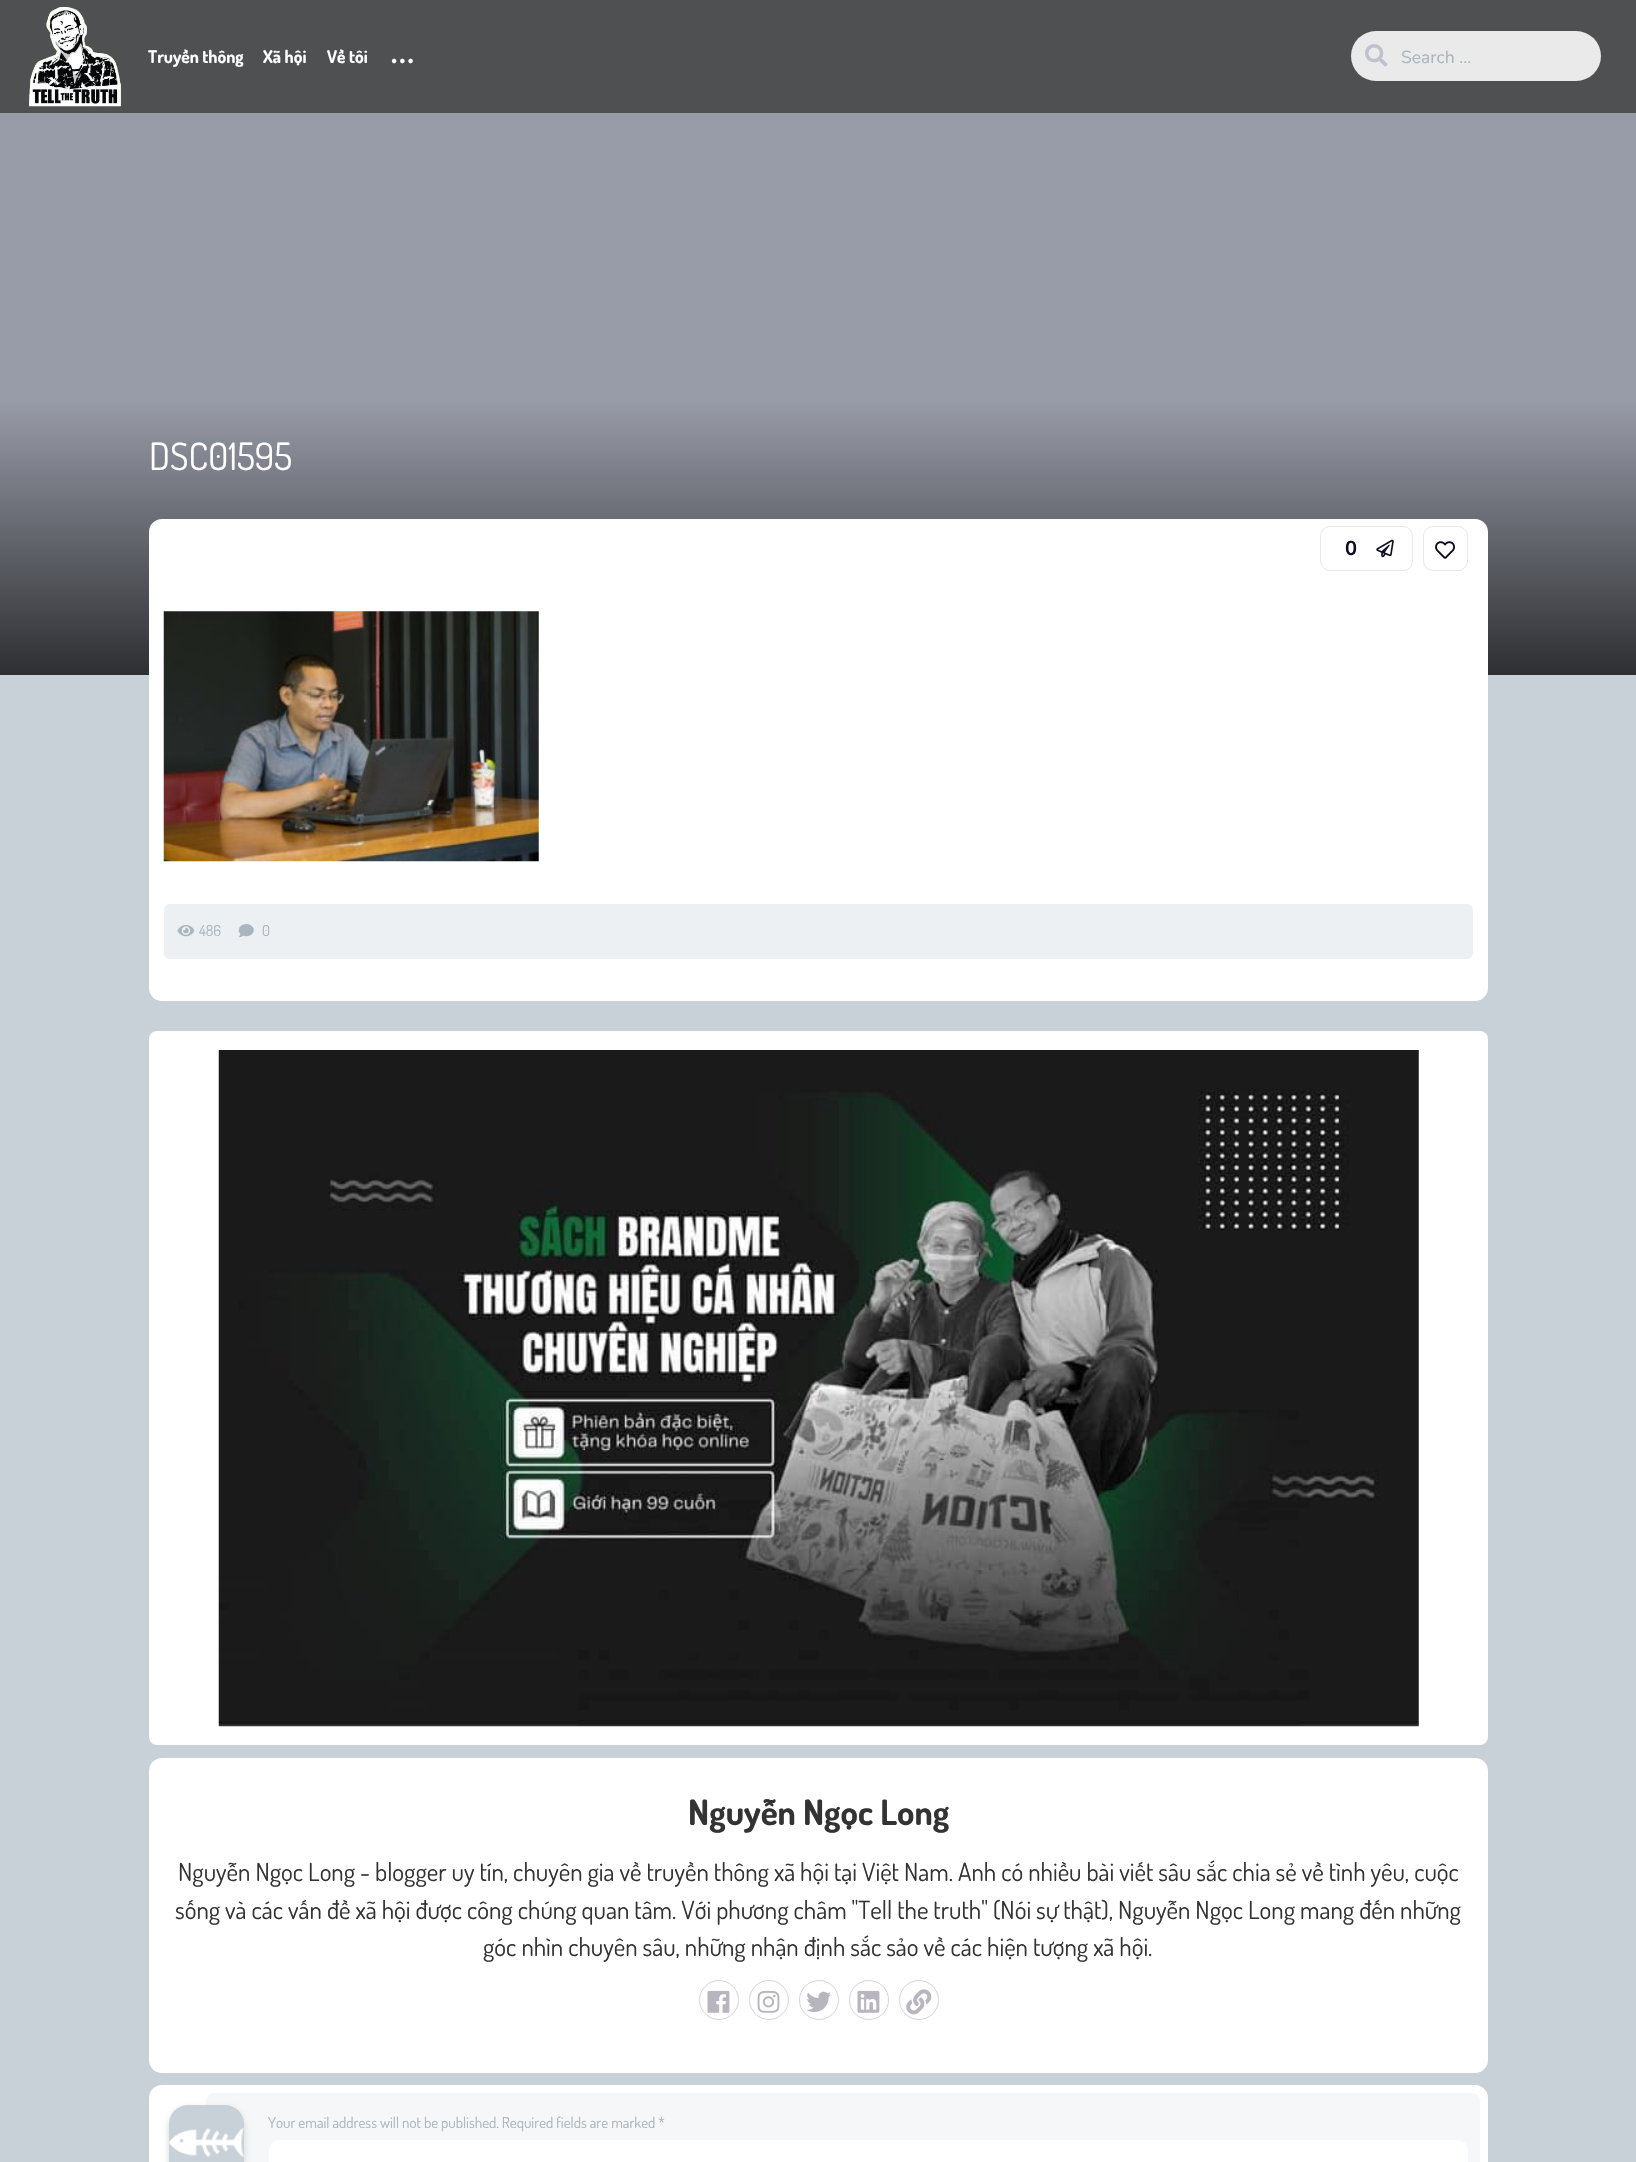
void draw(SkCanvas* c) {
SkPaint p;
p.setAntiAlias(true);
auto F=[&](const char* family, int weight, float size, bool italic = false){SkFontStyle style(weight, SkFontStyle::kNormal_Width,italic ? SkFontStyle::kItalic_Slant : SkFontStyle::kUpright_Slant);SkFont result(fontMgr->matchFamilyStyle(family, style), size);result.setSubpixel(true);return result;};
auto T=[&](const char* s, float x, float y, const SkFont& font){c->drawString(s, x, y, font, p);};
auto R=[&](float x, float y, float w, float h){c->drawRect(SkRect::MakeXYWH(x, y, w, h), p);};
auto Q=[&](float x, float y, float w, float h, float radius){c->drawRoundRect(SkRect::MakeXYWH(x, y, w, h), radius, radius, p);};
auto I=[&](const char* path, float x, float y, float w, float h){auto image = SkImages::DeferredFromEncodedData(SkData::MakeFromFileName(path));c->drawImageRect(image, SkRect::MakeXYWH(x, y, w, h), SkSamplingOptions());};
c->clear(0xffc8d1d8);
p.setColor(0xd1333333);
R(0,0,1636,113);
I("1.png",29,6,92,101);
auto f1 = F("Dosis",700,17.5);
p.setColor(0xffffffff);
T("Truyền thông",148,63,f1);
T("Xã hội",263,63,f1);
T("Về tôi",327,63,f1);
auto f2 = F("Dosis",400,48);
T("...",390,63,f2);
p.setColor(0xffeaeaea);
Q(1351,31,250,50,25);
I("2.png",1365,44,23,23);
auto f3 = F("Nunito",400,17.5);
p.setColor(0xffa8b6c0);
T("Search …",1401,63,f3);
p.setColor(0xff989ca9);
R(0,113,1636,287);
{
const SkColor colors[] = {0xff989ca8,0xff2e2f32};
const float stops[] = {0,1};
const SkPoint ends[] = {{818,400}, {818,675}};
p.setShader(SkGradientShader::MakeLinear(ends, colors, stops, 2, SkTileMode::kClamp));
p.setAlpha(255);
}
R(0,400,1636,275);
auto f4 = F("Dosis",400,37.5);
p.setShader(nullptr);
p.setColor(0xffffffff);
T("DSC01595",149,470,f4);
Q(149,519,1339,482,13);
p.setStroke(true);
p.setStrokeWidth(1);
p.setColor(0xffe7e7e9);
c->drawRoundRect(SkRect::MakeXYWH(1320.5,526.5,92,44),9.5,9.5,p);
auto f5 = F("Nunito",700,20);
p.setStroke(false);
p.setColor(0xff0d0c22);
T("0",1345,555,f5);
I("3.png",1376,539,18,19);
p.setStroke(true);
p.setColor(0xffe7e7e9);
c->drawRoundRect(SkRect::MakeXYWH(1423.5,526.5,44,44),9.5,9.5,p);
I("4.png",1435,541,20,18);
I("5.png",163,611,376,251);
p.setStroke(false);
p.setColor(0xffedf0f3);
Q(164,904,1309,55,6);
I("6.png",177,925,18,12);
auto f6 = F("Dosis",400,15);
p.setColor(0xffa8b6c0);
T("486",199,936,f6);
I("7.png",238,924,16,14);
T("0",262,936,f6);
p.setColor(0xffffffff);
Q(149,1031,1339,714,8);
I("8.png",218,1050,1201,677);
Q(149,1758,1339,315,13);
auto f7 = F("Dosis",700,35);
p.setColor(0xff333333);
T("Nguyễn Ngọc Long",688,1825,f7);
auto f8 = F("Dosis",400,25);
T("Nguyễn Ngọc Long - blogger uy tín, chuyên gia về truyền thông xã hội tại Việt Nam. Anh có nhiều bài viết sâu sắc chia sẻ về tình yêu, cuộc",178,1881,f8);
T("sống và các vấn đề xã hội được công chúng quan tâm. Với phương châm \"Tell the truth\" (Nói sự thật), Nguyễn Ngọc Long mang đến những",175,1919,f8);
T("góc nhìn chuyên sâu, những nhận định sắc sảo về các hiện tượng xã hội.",483,1956,f8);
p.setStroke(true);
p.setColor(0xffd5d2d9);
c->drawCircle(719,2000,19.5,p);
I("9.png",707,1990,23,23);
c->drawCircle(769,2000,19.5,p);
I("10.png",757,1990,23,23);
c->drawCircle(819,2000,19.5,p);
I("11.png",806,1991,25,21);
c->drawCircle(869,2000,19.5,p);
I("12.png",857,1990,23,23);
c->drawCircle(919,2000,19.5,p);
I("13.png",906,1989,26,26);
p.setStroke(false);
p.setColor(0xffffffff);
Q(149,2085,1339,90,13);
p.setColor(0xfff6f7f9);
Q(206,2093,1274,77,8);
p.setColor(0x26000000);
p.setMaskFilter(SkMaskFilter::MakeBlur(kNormal_SkBlurStyle, 3));
c->drawRoundRect(SkRect::MakeXYWH(169,2108,75,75),19,19,p);
p.setMaskFilter(nullptr);
p.setColor(0xffc8d1d8);
Q(169,2105,75,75,19);
I("14.png",169,2127,75,31);
p.setColor(0xffa8b6c0);
T("Your email address will not be published. Required fields are marked *",268,2128,f6);
p.setColor(0xffffffff);
Q(269,2140,1199,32,10);
}
